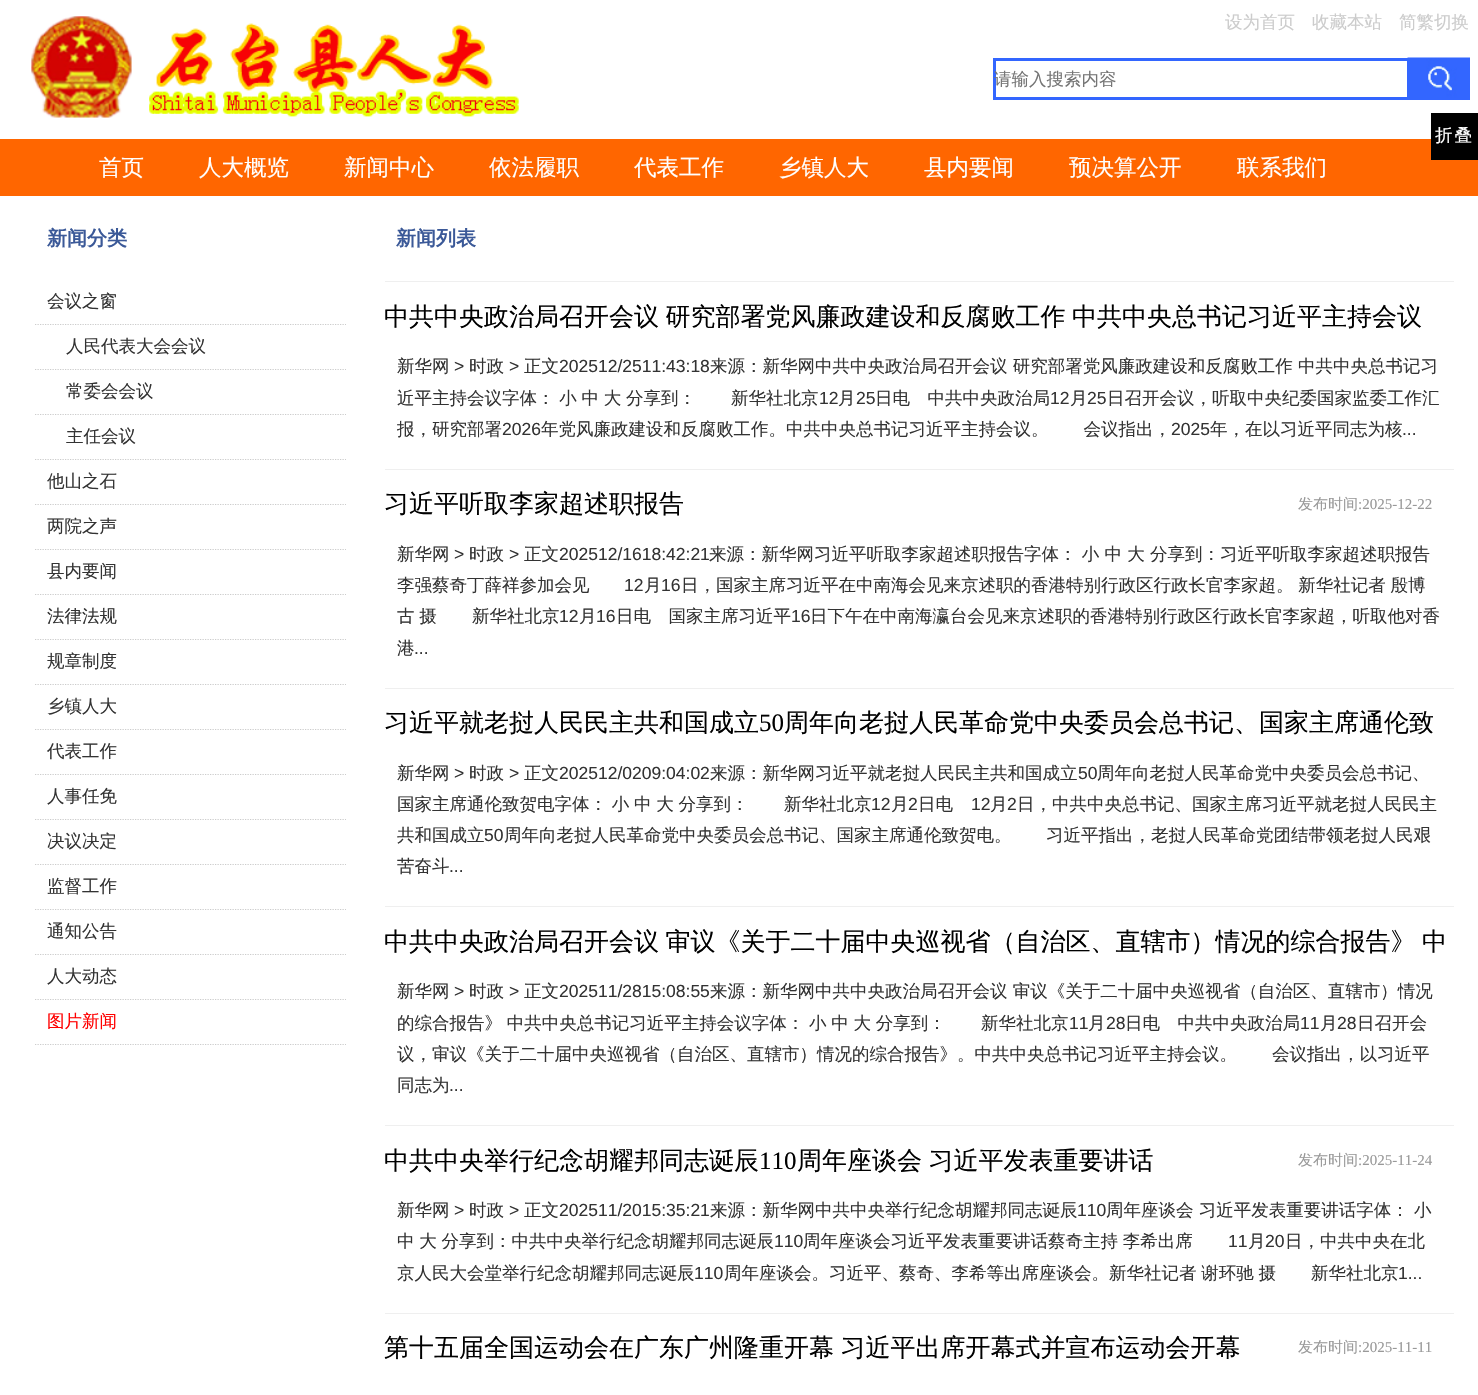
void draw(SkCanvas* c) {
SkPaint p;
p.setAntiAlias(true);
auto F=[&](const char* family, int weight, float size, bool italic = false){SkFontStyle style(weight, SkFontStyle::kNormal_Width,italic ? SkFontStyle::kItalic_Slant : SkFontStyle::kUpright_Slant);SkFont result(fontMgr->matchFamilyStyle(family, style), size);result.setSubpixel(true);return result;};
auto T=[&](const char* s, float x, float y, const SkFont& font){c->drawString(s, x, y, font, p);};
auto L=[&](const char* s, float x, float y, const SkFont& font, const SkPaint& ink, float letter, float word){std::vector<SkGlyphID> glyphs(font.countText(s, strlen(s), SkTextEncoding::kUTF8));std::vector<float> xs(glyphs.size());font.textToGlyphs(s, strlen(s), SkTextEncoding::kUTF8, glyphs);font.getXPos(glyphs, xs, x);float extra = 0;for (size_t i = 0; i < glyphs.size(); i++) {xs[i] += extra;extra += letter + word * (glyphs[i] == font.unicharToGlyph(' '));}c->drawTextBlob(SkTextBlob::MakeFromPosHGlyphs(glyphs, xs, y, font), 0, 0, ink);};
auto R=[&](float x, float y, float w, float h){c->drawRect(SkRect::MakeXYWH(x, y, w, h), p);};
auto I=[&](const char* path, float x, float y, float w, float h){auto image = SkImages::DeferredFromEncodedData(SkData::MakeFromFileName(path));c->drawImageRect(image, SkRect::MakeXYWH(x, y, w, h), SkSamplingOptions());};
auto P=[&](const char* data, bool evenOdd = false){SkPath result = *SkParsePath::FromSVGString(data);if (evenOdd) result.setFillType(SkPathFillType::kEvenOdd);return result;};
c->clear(0xffffffff);
I("1.png",31,16,488,102);
auto f1 = F("WenQuanYi Zen Hei",500,17.5);
p.setColor(0xffcccccc);
T("设为首页",1225,28,f1);
T("收藏本站",1312,28,f1);
T("简繁切换",1399,28,f1);
p.setStroke(true);
p.setStrokeWidth(3);
p.setColor(0xff3366ff);
c->drawRect(SkRect::MakeXYWH(994.5,59.5,414,39),p);
p.setStroke(false);
p.setColor(0xff757575);
T("请输入搜索内容",994,85,f1);
I("2.png",1407,57,63,43);
p.setColor(0xffff6600);
R(0,139,1478,57);
auto f2 = F("WenQuanYi Zen Hei",500,22.5);
p.setColor(0xffffffff);
T("首页",99,175,f2);
T("人大概览",199,175,f2);
T("新闻中心",344,175,f2);
T("依法履职",489,175,f2);
T("代表工作",634,175,f2);
T("乡镇人大",779,175,f2);
T("县内要闻",924,175,f2);
T("预决算公开",1069,175,f2);
T("联系我们",1237,175,f2);
auto f3 = F("WenQuanYi Zen Hei",700,20);
p.setColor(0xff3b5998);
T("新闻分类",47,245,f3);
p.setStroke(true);
p.setStrokeWidth(1.2);
p.setColor(0xffcccccc);
p.setPathEffect(SkDashPathEffect::Make({{1.25f,1.25f}}, 0));
c->drawPath(P("M35 324.5h311"),p);
p.setPathEffect(nullptr);
p.setStroke(false);
p.setColor(0xff333333);
T("会议之窗",47,307,f1);
p.setStroke(true);
p.setColor(0xffcccccc);
p.setPathEffect(SkDashPathEffect::Make({{1.25f,1.25f}}, 0));
c->drawPath(P("M35 369.5h311"),p);
p.setPathEffect(nullptr);
p.setStroke(false);
p.setColor(0xff333333);
T("人民代表大会会议",66,352,f1);
p.setStroke(true);
p.setColor(0xffcccccc);
p.setPathEffect(SkDashPathEffect::Make({{1.25f,1.25f}}, 0));
c->drawPath(P("M35 414.5h311"),p);
p.setPathEffect(nullptr);
p.setStroke(false);
p.setColor(0xff333333);
T("常委会会议",66,397,f1);
p.setStroke(true);
p.setColor(0xffcccccc);
p.setPathEffect(SkDashPathEffect::Make({{1.25f,1.25f}}, 0));
c->drawPath(P("M35 459.5h311"),p);
p.setPathEffect(nullptr);
p.setStroke(false);
p.setColor(0xff333333);
T("主任会议",66,442,f1);
p.setStroke(true);
p.setColor(0xffcccccc);
p.setPathEffect(SkDashPathEffect::Make({{1.25f,1.25f}}, 0));
c->drawPath(P("M35 504.5h311"),p);
p.setPathEffect(nullptr);
p.setStroke(false);
p.setColor(0xff333333);
T("他山之石",47,487,f1);
p.setStroke(true);
p.setColor(0xffcccccc);
p.setPathEffect(SkDashPathEffect::Make({{1.25f,1.25f}}, 0));
c->drawPath(P("M35 549.5h311"),p);
p.setPathEffect(nullptr);
p.setStroke(false);
p.setColor(0xff333333);
T("两院之声",47,532,f1);
p.setStroke(true);
p.setColor(0xffcccccc);
p.setPathEffect(SkDashPathEffect::Make({{1.25f,1.25f}}, 0));
c->drawPath(P("M35 594.5h311"),p);
p.setPathEffect(nullptr);
p.setStroke(false);
p.setColor(0xff333333);
T("县内要闻",47,577,f1);
p.setStroke(true);
p.setColor(0xffcccccc);
p.setPathEffect(SkDashPathEffect::Make({{1.25f,1.25f}}, 0));
c->drawPath(P("M35 639.5h311"),p);
p.setPathEffect(nullptr);
p.setStroke(false);
p.setColor(0xff333333);
T("法律法规",47,622,f1);
p.setStroke(true);
p.setColor(0xffcccccc);
p.setPathEffect(SkDashPathEffect::Make({{1.25f,1.25f}}, 0));
c->drawPath(P("M35 684.5h311"),p);
p.setPathEffect(nullptr);
p.setStroke(false);
p.setColor(0xff333333);
T("规章制度",47,667,f1);
p.setStroke(true);
p.setColor(0xffcccccc);
p.setPathEffect(SkDashPathEffect::Make({{1.25f,1.25f}}, 0));
c->drawPath(P("M35 729.5h311"),p);
p.setPathEffect(nullptr);
p.setStroke(false);
p.setColor(0xff333333);
T("乡镇人大",47,712,f1);
p.setStroke(true);
p.setColor(0xffcccccc);
p.setPathEffect(SkDashPathEffect::Make({{1.25f,1.25f}}, 0));
c->drawPath(P("M35 774.5h311"),p);
p.setPathEffect(nullptr);
p.setStroke(false);
p.setColor(0xff333333);
T("代表工作",47,757,f1);
p.setStroke(true);
p.setColor(0xffcccccc);
p.setPathEffect(SkDashPathEffect::Make({{1.25f,1.25f}}, 0));
c->drawPath(P("M35 819.5h311"),p);
p.setPathEffect(nullptr);
p.setStroke(false);
p.setColor(0xff333333);
T("人事任免",47,802,f1);
p.setStroke(true);
p.setColor(0xffcccccc);
p.setPathEffect(SkDashPathEffect::Make({{1.25f,1.25f}}, 0));
c->drawPath(P("M35 864.5h311"),p);
p.setPathEffect(nullptr);
p.setStroke(false);
p.setColor(0xff333333);
T("决议决定",47,847,f1);
p.setStroke(true);
p.setColor(0xffcccccc);
p.setPathEffect(SkDashPathEffect::Make({{1.25f,1.25f}}, 0));
c->drawPath(P("M35 909.5h311"),p);
p.setPathEffect(nullptr);
p.setStroke(false);
p.setColor(0xff333333);
T("监督工作",47,892,f1);
p.setStroke(true);
p.setColor(0xffcccccc);
p.setPathEffect(SkDashPathEffect::Make({{1.25f,1.25f}}, 0));
c->drawPath(P("M35 954.5h311"),p);
p.setPathEffect(nullptr);
p.setStroke(false);
p.setColor(0xff333333);
T("通知公告",47,937,f1);
p.setStroke(true);
p.setColor(0xffcccccc);
p.setPathEffect(SkDashPathEffect::Make({{1.25f,1.25f}}, 0));
c->drawPath(P("M35 999.5h311"),p);
p.setPathEffect(nullptr);
p.setStroke(false);
p.setColor(0xff333333);
T("人大动态",47,982,f1);
p.setStroke(true);
p.setColor(0xffcccccc);
p.setPathEffect(SkDashPathEffect::Make({{1.25f,1.25f}}, 0));
c->drawPath(P("M35 1044.5h311"),p);
p.setPathEffect(nullptr);
p.setStroke(false);
p.setColor(0xffff0000);
T("图片新闻",47,1027,f1);
p.setColor(0xff3b5998);
T("新闻列表",396,245,f3);
p.setColor(0xffefefef);
R(385,281,1069,1);
auto f4 = F("WenQuanYi Zen Hei",500,25);
p.setColor(0xff000000);
L("中共中央政治局召开会议 研究部署党风廉政建设和反腐败工作 中共中央总书记习近平主持会议",384,325,f4,p,0,-1);
p.setColor(0xff333333);
T("新华网",397,372,f1);
auto f5 = F("Liberation Sans",400,17.5);
T(">",454,372,f5);
T("时政",469,372,f1);
T(">",509,372,f5);
T("正文",524,372,f1);
T("202512/2511:43:18",559,372,f5);
T("来源：新华网中共中央政治局召开会议 研究部署党风廉政建设和反腐败工作 中共中央总书记习",710,372,f1);
L("近平主持会议字体： 小 中 大 分享到：　　新华社北京",397,404,f1,p,0,-.5);
T("12",819,404,f5);
T("月",838,404,f1);
T("25",856,404,f5);
T("日电　中共中央政治局",875,404,f1);
T("12",1050,404,f5);
T("月",1070,404,f1);
T("25",1087,404,f5);
T("日召开会议，听取中央纪委国家监委工作汇",1107,404,f1);
T("报，研究部署",397,435,f1);
T("2026",502,435,f5);
T("年党风廉政建设和反腐败工作。中共中央总书记习近平主持会议。　　会议指出，",541,435,f1);
T("2025",1171,435,f5);
T("年，在以习近平同志为核",1210,435,f1);
T("...",1402,435,f5);
p.setColor(0xffefefef);
R(385,469,1069,1);
p.setColor(0xff000000);
T("习近平听取李家超述职报告",384,512,f4);
auto f6 = F("WenQuanYi Zen Hei",500,15);
p.setColor(0xff999999);
T("发布时间",1298,509,f6);
auto f7 = F("Liberation Serif",400,15);
T(":2025-12-22",1358,509,f7);
p.setColor(0xff333333);
T("新华网",397,560,f1);
T(">",454,560,f5);
T("时政",469,560,f1);
T(">",509,560,f5);
T("正文",524,560,f1);
T("202512/1618:42:21",559,560,f5);
T("来源：新华网习近平听取李家超述职报告字体： 小 中 大 分享到：习近平听取李家超述职报告",709,560,f1);
T("李强蔡奇丁薛祥参加会见",397,591,f1);
T("12",624,591,f5);
T("月",644,591,f1);
T("16",661,591,f5);
L("日，国家主席习近平在中南海会见来京述职的香港特别行政区行政长官李家超。 新华社记者 殷博",681,591,f1,p,0,-.5);
L("古 摄",397,622,f1,p,0,-.5);
T("新华社北京",472,622,f1);
T("12",559,622,f5);
T("月",579,622,f1);
T("16",596,622,f5);
T("日电　国家主席习近平",616,622,f1);
T("16",791,622,f5);
T("日下午在中南海瀛台会见来京述职的香港特别行政区行政长官李家超，听取他对香",810,622,f1);
T("港",397,654,f1);
T("...",414,654,f5);
p.setColor(0xffefefef);
R(385,688,1069,1);
p.setColor(0xff000000);
T("习近平就老挝人民民主共和国成立",384,731,f4);
auto f8 = F("Liberation Serif",400,25);
T("50",759,731,f8);
T("周年向老挝人民革命党中央委员会总书记、国家主席通伦致",784,731,f4);
p.setColor(0xff333333);
T("新华网",397,779,f1);
T(">",454,779,f5);
T("时政",469,779,f1);
T(">",509,779,f5);
T("正文",524,779,f1);
T("202512/0209:04:02",559,779,f5);
T("来源：新华网习近平就老挝人民民主共和国成立",710,779,f1);
T("50",1078,779,f5);
T("周年向老挝人民革命党中央委员会总书记、",1097,779,f1);
L("国家主席通伦致贺电字体： 小 中 大 分享到：",397,810,f1,p,0,-.5);
T("新华社北京",784,810,f1);
T("12",871,810,f5);
T("月",891,810,f1);
T("2",908,810,f5);
T("日电",918,810,f1);
T("12",971,810,f5);
T("月",990,810,f1);
T("2",1007,810,f5);
T("日，中共中央总书记、国家主席习近平就老挝人民民主",1017,810,f1);
T("共和国成立",397,841,f1);
T("50",484,841,f5);
T("周年向老挝人民革命党中央委员会总书记、国家主席通伦致贺电。",504,841,f1);
T("习近平指出，老挝人民革命党团结带领老挝人民艰",1046,841,f1);
T("苦奋斗",397,872,f1);
T("...",449,872,f5);
p.setColor(0xffefefef);
R(385,906,1069,1);
p.setColor(0xff000000);
L("中共中央政治局召开会议 审议《关于二十届中央巡视省（自治区、直辖市）情况的综合报告》 中",384,950,f4,p,0,-1);
p.setColor(0xff333333);
T("新华网",397,997,f1);
T(">",454,997,f5);
T("时政",469,997,f1);
T(">",509,997,f5);
T("正文",524,997,f1);
T("202511/2815:08:55",559,997,f5);
T("来源：新华网中共中央政治局召开会议 审议《关于二十届中央巡视省（自治区、直辖市）情况",710,997,f1);
L("的综合报告》 中共中央总书记习近平主持会议字体： 小 中 大 分享到：",397,1029,f1,p,0,-.5);
T("新华社北京",981,1029,f1);
T("11",1069,1029,f5);
T("月",1088,1029,f1);
T("28",1106,1029,f5);
T("日电　中共中央政治局",1125,1029,f1);
T("11",1300,1029,f5);
T("月",1320,1029,f1);
T("28",1337,1029,f5);
T("日召开会",1357,1029,f1);
T("议，审议《关于二十届中央巡视省（自治区、直辖市）情况的综合报告》。中共中央总书记习近平主持会议。",397,1060,f1);
T("会议指出，以习近平",1272,1060,f1);
T("同志为",397,1091,f1);
T("...",449,1091,f5);
p.setColor(0xffefefef);
R(385,1125,1069,1);
p.setColor(0xff000000);
T("中共中央举行纪念胡耀邦同志诞辰",384,1169,f4);
T("110",759,1169,f8);
L("周年座谈会 习近平发表重要讲话",797,1169,f4,p,0,-1);
p.setColor(0xff999999);
T("发布时间",1298,1165,f6);
T(":2025-11-24",1358,1165,f7);
p.setColor(0xff333333);
T("新华网",397,1216,f1);
T(">",454,1216,f5);
T("时政",469,1216,f1);
T(">",509,1216,f5);
T("正文",524,1216,f1);
T("202511/2015:35:21",559,1216,f5);
T("来源：新华网中共中央举行纪念胡耀邦同志诞辰",710,1216,f1);
T("110",1077,1216,f5);
T("周年座谈会 习近平发表重要讲话字体： 小",1106,1216,f1);
L("中 大 分享到：中共中央举行纪念胡耀邦同志诞辰",397,1247,f1,p,0,-.5);
T("110",774,1247,f5);
L("周年座谈会习近平发表重要讲话蔡奇主持 李希出席",803,1247,f1,p,0,-.5);
T("11",1228,1247,f5);
T("月",1248,1247,f1);
T("20",1265,1247,f5);
T("日，中共中央在北",1285,1247,f1);
T("京人民大会堂举行纪念胡耀邦同志诞辰",397,1279,f1);
T("110",694,1279,f5);
L("周年座谈会。习近平、蔡奇、李希等出席座谈会。新华社记者 谢环驰 摄",724,1279,f1,p,0,-.5);
T("新华社北京",1311,1279,f1);
T("1...",1398,1279,f5);
p.setColor(0xffefefef);
R(385,1313,1069,1);
p.setColor(0xff000000);
L("第十五届全国运动会在广东广州隆重开幕 习近平出席开幕式并宣布运动会开幕",384,1356,f4,p,0,-1);
p.setColor(0xff999999);
T("发布时间",1298,1352,f6);
T(":2025-11-11",1358,1352,f7);
p.setColor(0xff000000);
R(1431,113,47,47);
p.setColor(0xffffffff);
L("折叠",1435,141,f1,p,2,0);
}
